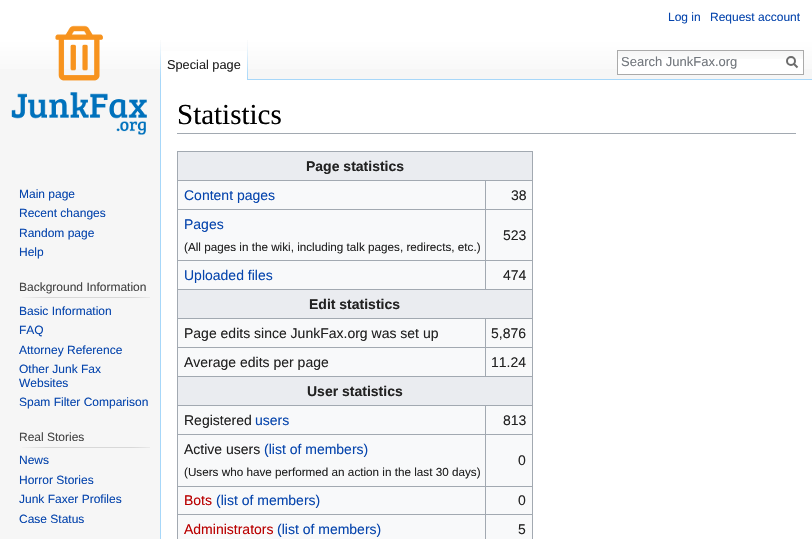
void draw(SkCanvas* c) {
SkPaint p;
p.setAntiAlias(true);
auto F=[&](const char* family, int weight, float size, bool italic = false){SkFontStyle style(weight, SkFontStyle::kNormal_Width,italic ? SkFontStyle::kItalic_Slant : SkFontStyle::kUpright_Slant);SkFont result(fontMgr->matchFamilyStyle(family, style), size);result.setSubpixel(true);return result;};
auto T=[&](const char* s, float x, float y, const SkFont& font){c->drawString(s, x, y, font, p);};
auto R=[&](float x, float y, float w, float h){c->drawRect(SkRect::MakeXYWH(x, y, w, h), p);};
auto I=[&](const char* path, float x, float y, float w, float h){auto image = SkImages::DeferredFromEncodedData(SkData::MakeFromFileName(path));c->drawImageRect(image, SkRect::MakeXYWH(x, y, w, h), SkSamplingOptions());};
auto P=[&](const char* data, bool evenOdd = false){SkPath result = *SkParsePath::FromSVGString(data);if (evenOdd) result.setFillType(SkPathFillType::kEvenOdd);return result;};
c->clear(0xfff6f6f6);
{
const SkColor colors[] = {0xffffffff,0xfff6f6f6};
const float stops[] = {.5,1};
const SkPoint ends[] = {{406,0}, {406,80}};
p.setShader(SkGradientShader::MakeLinear(ends, colors, stops, 2, SkTileMode::kClamp));
p.setAlpha(255);
}
R(0,0,812,69);
auto f1 = F("Liberation Sans",400,12);
p.setShader(nullptr);
p.setColor(0xff0645ad);
T("Log in",668,21,f1);
T("Request account",710,21,f1);
I("1.png",160,40,1,39);
p.setColor(0xffffffff);
R(161,51,86,29);
I("2.png",247,40,1,40);
auto f2 = F("Liberation Sans",400,12.75);
p.setColor(0xff222222);
T("Special page",167,69,f2);
p.setColor(0xffffffff);
R(618,59,185,15);
I("3.png",618,51,185,8);
p.setStroke(true);
p.setStrokeWidth(1);
p.setColor(0xffaaaaaa);
c->drawRect(SkRect::MakeXYWH(617.5,50.5,186,24),p);
auto f3 = F("Liberation Sans",400,13);
p.setStroke(false);
p.setColor(0xff72777d);
T("Search JunkFax.org",621,66,f3);
p.setStroke(true);
p.setStrokeWidth(2);
p.setColor(0xff6c6c6c);
c->drawPath(P("M797.5 67.5l-4-4"),p);
c->drawCircle(791,61,4,p);
I("4.png",11,25,136,110);
p.setStroke(false);
p.setColor(0xff0645ad);
T("Main page",19,198,f1);
T("Recent changes",19,217,f1);
T("Random page",19,237,f1);
T("Help",19,256,f1);
p.setColor(0xff444444);
T("Background Information",19,291,f1);
I("5.png",22,297,128,1);
p.setColor(0xff0645ad);
T("Basic Information",19,315,f1);
T("FAQ",19,334,f1);
T("Attorney Reference",19,354,f1);
T("Other Junk Fax",19,373,f1);
T("Websites",19,387,f1);
T("Spam Filter Comparison",19,406,f1);
p.setColor(0xff444444);
T("Real Stories",19,441,f1);
I("5.png",22,447,128,1);
p.setColor(0xff0645ad);
T("News",19,464,f1);
T("Horror Stories",19,484,f1);
T("Junk Faxer Profiles",19,503,f1);
T("Case Status",19,523,f1);
p.setColor(0xffffffff);
R(161,80,651,459);
p.setColor(0xffa7d7f9);
R(248,79,564,1);
R(160,79,1,460);
p.setColor(0xffa2a9b1);
R(177,133,619,1);
auto f4 = F("Liberation Serif",400,29);
p.setColor(0xff000000);
T("Statistics",177,124,f4);
p.setColor(0xfff8f9fa);
R(178,181,354,358);
p.setColor(0xffa2a9b1);
R(177,151,356,1);
R(532,151,1,388);
R(177,151,1,388);
p.setColor(0xffeaecf0);
R(178,152,354,28);
auto f5 = F("Liberation Sans",700,14);
p.setColor(0xff222222);
T("Page statistics",306,171,f5);
p.setColor(0xffa2a9b1);
R(485,180,48,1);
R(485,209,48,1);
R(485,260,48,1);
R(177,289,356,1);
R(485,260,1,30);
R(177,260,309,1);
R(485,209,1,52);
R(177,209,309,1);
R(485,180,1,30);
R(177,180,309,1);
auto f6 = F("Liberation Sans",400,14);
p.setColor(0xff0645ad);
T("Content pages",184,200,f6);
p.setColor(0xff222222);
T("38",511,200,f6);
p.setColor(0xff0645ad);
T("Pages",184,229,f6);
auto f7 = F("Liberation Sans",400,11.7);
p.setColor(0xff222222);
T("(All pages in the wiki, including talk pages, redirects, etc.)",184,251,f7);
T("523",503,240,f6);
p.setColor(0xff0645ad);
T("Uploaded files",184,280,f6);
p.setColor(0xff222222);
T("474",503,280,f6);
p.setColor(0xffeaecf0);
R(178,290,354,28);
p.setColor(0xff222222);
T("Edit statistics",309,309,f5);
p.setColor(0xffa2a9b1);
R(485,318,48,1);
R(485,347,48,1);
R(177,376,356,1);
R(485,347,1,30);
R(177,347,309,1);
R(485,318,1,30);
R(177,318,309,1);
p.setColor(0xff222222);
T("Page edits since JunkFax.org was set up",184,338,f6);
T("5,876",491,338,f6);
T("Average edits per page",184,367,f6);
T("11.24",491,367,f6);
p.setColor(0xffeaecf0);
R(178,377,354,28);
p.setColor(0xff222222);
T("User statistics",307,396,f5);
p.setColor(0xffa2a9b1);
R(485,405,48,1);
R(485,434,48,1);
R(485,486,48,1);
R(485,514,48,1);
R(485,514,1,25);
R(177,514,309,1);
R(485,486,1,29);
R(177,486,309,1);
R(485,434,1,53);
R(177,434,309,1);
R(485,405,1,30);
R(177,405,309,1);
p.setColor(0xff222222);
T("Registered",184,425,f6);
p.setColor(0xff0645ad);
T("users",255,425,f6);
p.setColor(0xff222222);
T("813",503,425,f6);
T("Active users",184,454,f6);
p.setColor(0xff0645ad);
T("(list of members)",264,454,f6);
p.setColor(0xff222222);
T("(Users who have performed an action in the last 30 days)",184,476,f7);
T("0",518,465,f6);
p.setColor(0xffba0000);
T("Bots",184,505,f6);
p.setColor(0xff0645ad);
T("(list of members)",216,505,f6);
p.setColor(0xff222222);
T("0",518,505,f6);
p.setColor(0xffba0000);
T("Administrators",184,534,f6);
p.setColor(0xff0645ad);
T("(list of members)",277,534,f6);
p.setColor(0xff222222);
T("5",518,534,f6);
}
